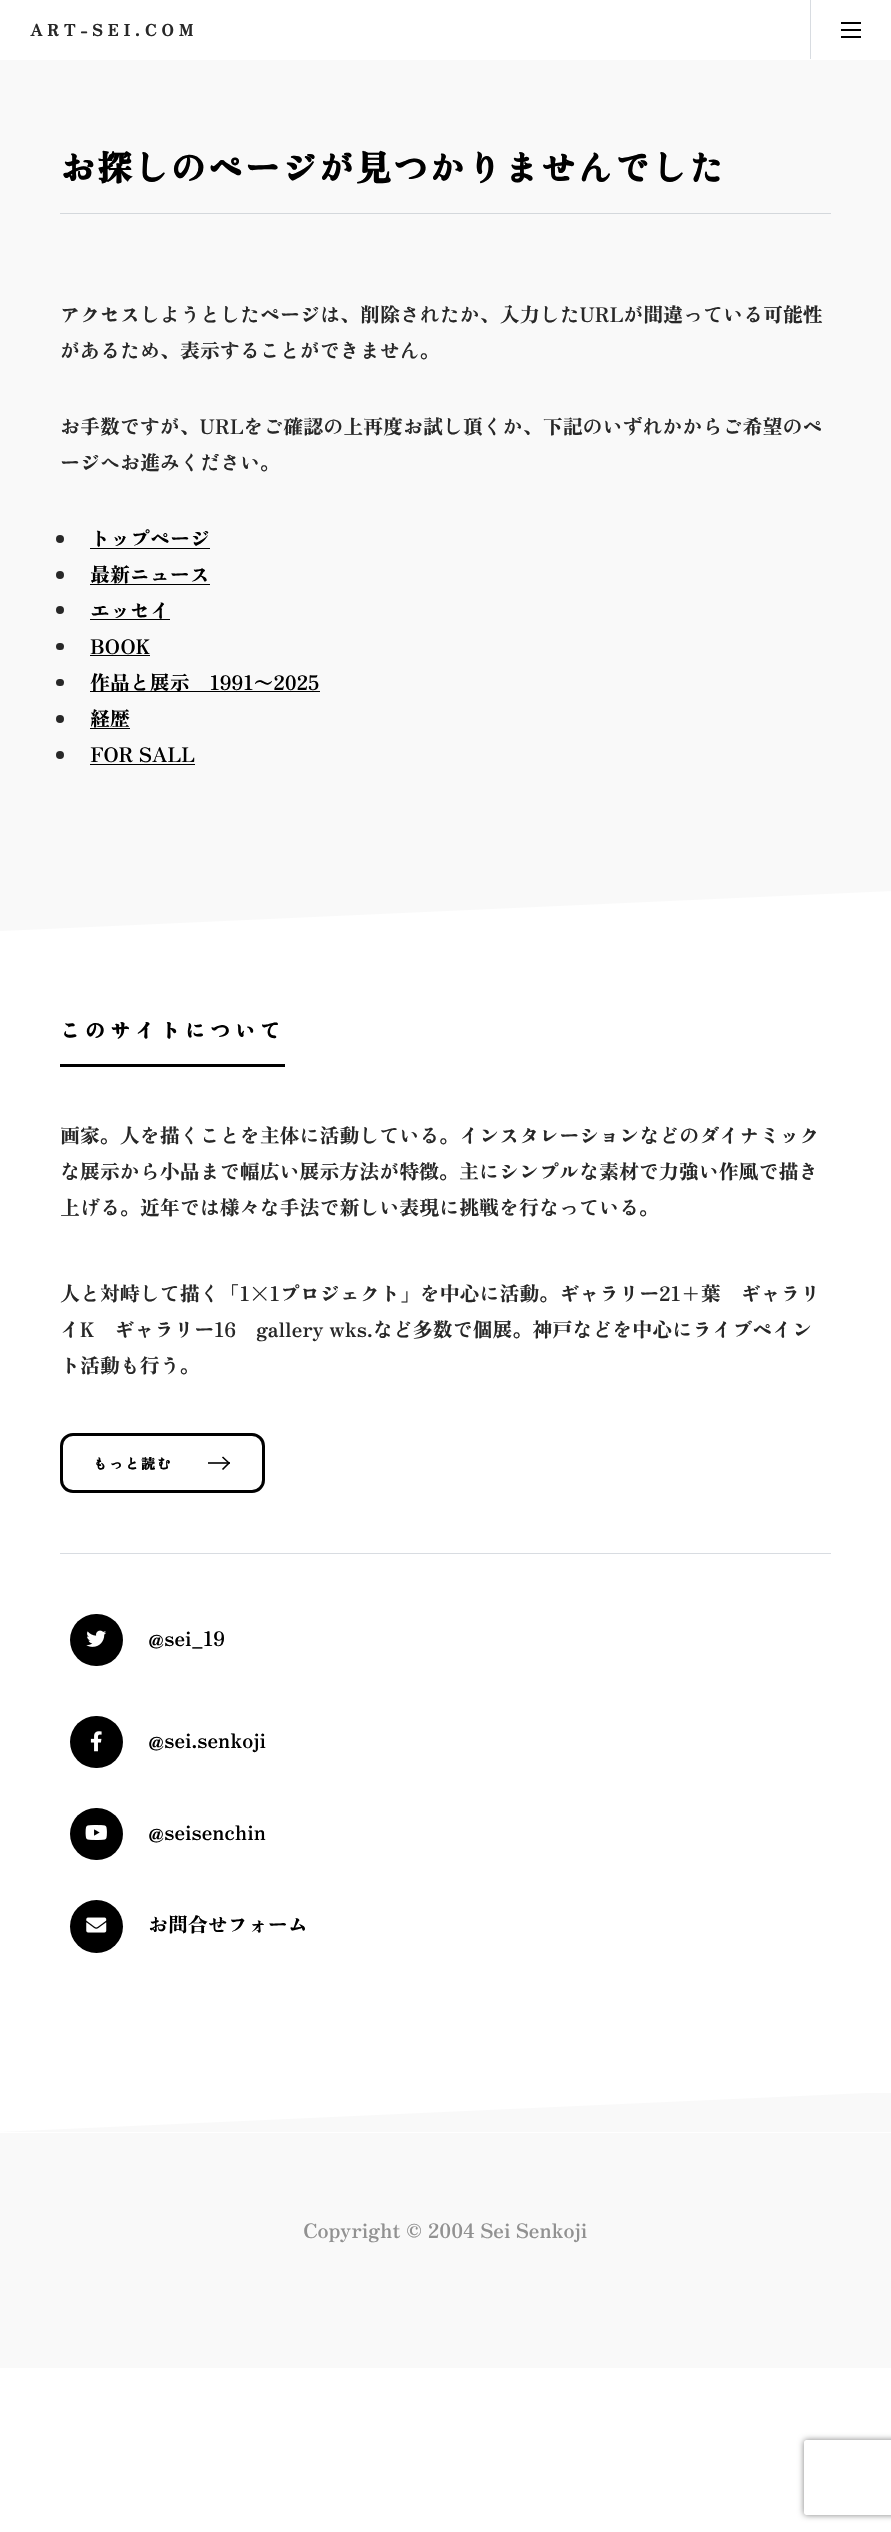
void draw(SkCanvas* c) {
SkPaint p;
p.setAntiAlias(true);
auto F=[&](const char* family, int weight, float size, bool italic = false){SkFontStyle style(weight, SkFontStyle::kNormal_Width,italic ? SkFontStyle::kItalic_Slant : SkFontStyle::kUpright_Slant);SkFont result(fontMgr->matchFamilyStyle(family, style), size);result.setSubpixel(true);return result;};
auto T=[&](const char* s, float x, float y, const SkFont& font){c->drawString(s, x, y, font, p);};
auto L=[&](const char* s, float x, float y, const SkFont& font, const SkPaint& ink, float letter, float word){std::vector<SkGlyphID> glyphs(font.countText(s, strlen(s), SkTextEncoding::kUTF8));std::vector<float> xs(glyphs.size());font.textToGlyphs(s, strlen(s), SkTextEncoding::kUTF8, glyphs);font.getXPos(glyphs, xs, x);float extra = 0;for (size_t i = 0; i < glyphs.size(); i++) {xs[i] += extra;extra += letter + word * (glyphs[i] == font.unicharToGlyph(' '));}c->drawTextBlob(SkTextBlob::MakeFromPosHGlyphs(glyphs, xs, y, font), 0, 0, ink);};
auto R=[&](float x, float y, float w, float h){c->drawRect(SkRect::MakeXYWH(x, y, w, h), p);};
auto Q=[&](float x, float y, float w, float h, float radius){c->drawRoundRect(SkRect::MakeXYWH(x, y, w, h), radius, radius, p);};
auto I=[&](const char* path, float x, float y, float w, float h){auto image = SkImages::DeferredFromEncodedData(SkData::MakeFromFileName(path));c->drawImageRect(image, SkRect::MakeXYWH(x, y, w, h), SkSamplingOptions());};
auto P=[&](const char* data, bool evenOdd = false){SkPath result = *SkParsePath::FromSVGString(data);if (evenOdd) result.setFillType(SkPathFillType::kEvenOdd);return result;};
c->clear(0xffffffff);
auto f1 = F("Zen Antique",700,16);
p.setColor(0xff282828);
L("ART-SEI.COM",30,36,f1,p,5,0);
p.setColor(0xffd8dce1);
R(810,0,1,59);
p.setColor(0xff000000);
R(841,22,20,2);
R(841,29,20,2);
R(841,36,20,2);
p.setColor(0xfff9f9f9);
R(0,60,891,871);
p.setColor(0xffd4d8dc);
R(60,213,771,1);
auto f2 = F("Zen Antique",700,35);
p.setColor(0xff000000);
L("お探しのページが見つかりませんでした",60,181,f2,p,2,0);
auto f3 = F("Zen Antique",400,20);
p.setColor(0xff282828);
T("アクセスしようとしたページは、削除されたか、入力したURLが間違っている可能性",60,322,f3);
T("があるため、表示することができません。",60,358,f3);
T("お手数ですが、URLをご確認の上再度お試し頂くか、下記のいずれかからご希望のペ",60,434,f3);
T("ージへお進みください。",60,470,f3);
c->drawCircle(60,539,4,p);
p.setColor(0xff000000);
T("トップページ",90,546,f3);
R(90,548,120,1);
p.setColor(0xff282828);
c->drawCircle(60,575,4,p);
p.setColor(0xff000000);
T("最新ニュース",90,582,f3);
R(90,584,120,1);
p.setColor(0xff282828);
c->drawCircle(60,610,4,p);
p.setColor(0xff000000);
T("エッセイ",90,618,f3);
R(90,619,80,1);
p.setColor(0xff282828);
Q(56,643,8,7,3.5);
p.setColor(0xff000000);
T("BOOK",90,654,f3);
R(90,655,60,1);
p.setColor(0xff282828);
Q(56,679,8,7,3.5);
p.setColor(0xff000000);
R(90,691,230,1);
T("作品と展示　1991〜2025",90,690,f3);
p.setColor(0xff282828);
c->drawCircle(60,719,4,p);
p.setColor(0xff000000);
T("経歴",90,726,f3);
R(90,728,40,1);
p.setColor(0xff282828);
c->drawCircle(60,755,4,p);
p.setColor(0xff000000);
T("FOR SALL",90,762,f3);
R(90,764,105,1);
p.setColor(0xffffffff);
c->drawPath(P("M891 891v40h-891z"),p);
p.setColor(0xffd8dce1);
R(60,1553,771,1);
p.setColor(0xff000000);
R(60,1064,225,3);
auto f4 = F("Zen Antique",700,20);
L("このサイトについて",60,1038,f4,p,5,0);
p.setColor(0xff282828);
T("画家。人を描くことを主体に活動している。インスタレーションなどのダイナミック",60,1143,f3);
T("な展示から小品まで幅広い展示方法が特徴。主にシンプルな素材で力強い作風で描き",60,1179,f3);
T("上げる。近年では様々な手法で新しい表現に挑戦を行なっている。",60,1215,f3);
T("人と対峙して描く「1×1プロジェクト」を中心に活動。ギャラリー21+葉　ギャラリ",60,1301,f3);
T("イK　ギャラリー16　gallery wks.など多数で個展。神戸などを中心にライブペイン",60,1337,f3);
T("ト活動も行う。",60,1373,f3);
p.setStroke(true);
p.setStrokeWidth(3);
p.setColor(0xff000000);
c->drawRoundRect(SkRect::MakeXYWH(61.5,1434.5,202,57),11.5,11.5,p);
auto f5 = F("Zen Antique",700,14);
p.setStroke(false);
L("もっと読む",93,1469,f5,p,2,0);
p.setColor(0xff333333);
R(208,1462,22,2);
p.setStroke(true);
p.setStrokeWidth(1.6);
p.setColor(0xff000000);
c->drawPath(P("M222.5 1457l7 6.5m-7 6l7-7"),p);
p.setStroke(false);
Q(70,1614,53,52,26);
I("1.png",86,1630,21,17);
T("@sei_19",148,1646,f3);
Q(70,1716,53,52,26);
I("2.png",90,1731,12,21);
T("@sei.senkoji",148,1748,f3);
Q(70,1808,53,52,26);
I("3.png",85,1825,22,15);
T("@seisenchin",148,1840,f3);
c->drawCircle(96.5,1926.5,26.5,p);
I("4.png",86,1917,21,16);
T("お問合せフォーム",148,1932,f3);
p.setColor(0xfff9f9f9);
R(0,2133,891,235);
c->save();
c->clipRect(SkRect::MakeXYWH(0,2093,891,40));
c->drawPath(P("M891 2092v40h-891z"),p);
c->restore();
p.setColor(0xff919191);
T("Copyright © 2004 Sei Senkoji",303,2238,f3);
c->save();
c->clipPath(P("M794 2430h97v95h-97zm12.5 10h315c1.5 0 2.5 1 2.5 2.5v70c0 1.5-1 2.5-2.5 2.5h-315c-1.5 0-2.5-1-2.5-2.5v-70c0-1.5 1-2.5 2.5-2.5z",true),true);
p.setColor(0xff808080);
p.setMaskFilter(SkMaskFilter::MakeBlur(kNormal_SkBlurStyle, 3));
c->drawRoundRect(SkRect::MakeXYWH(804,2440,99,75),2.5,2.5,p);
p.setMaskFilter(nullptr);
c->restore();
}
